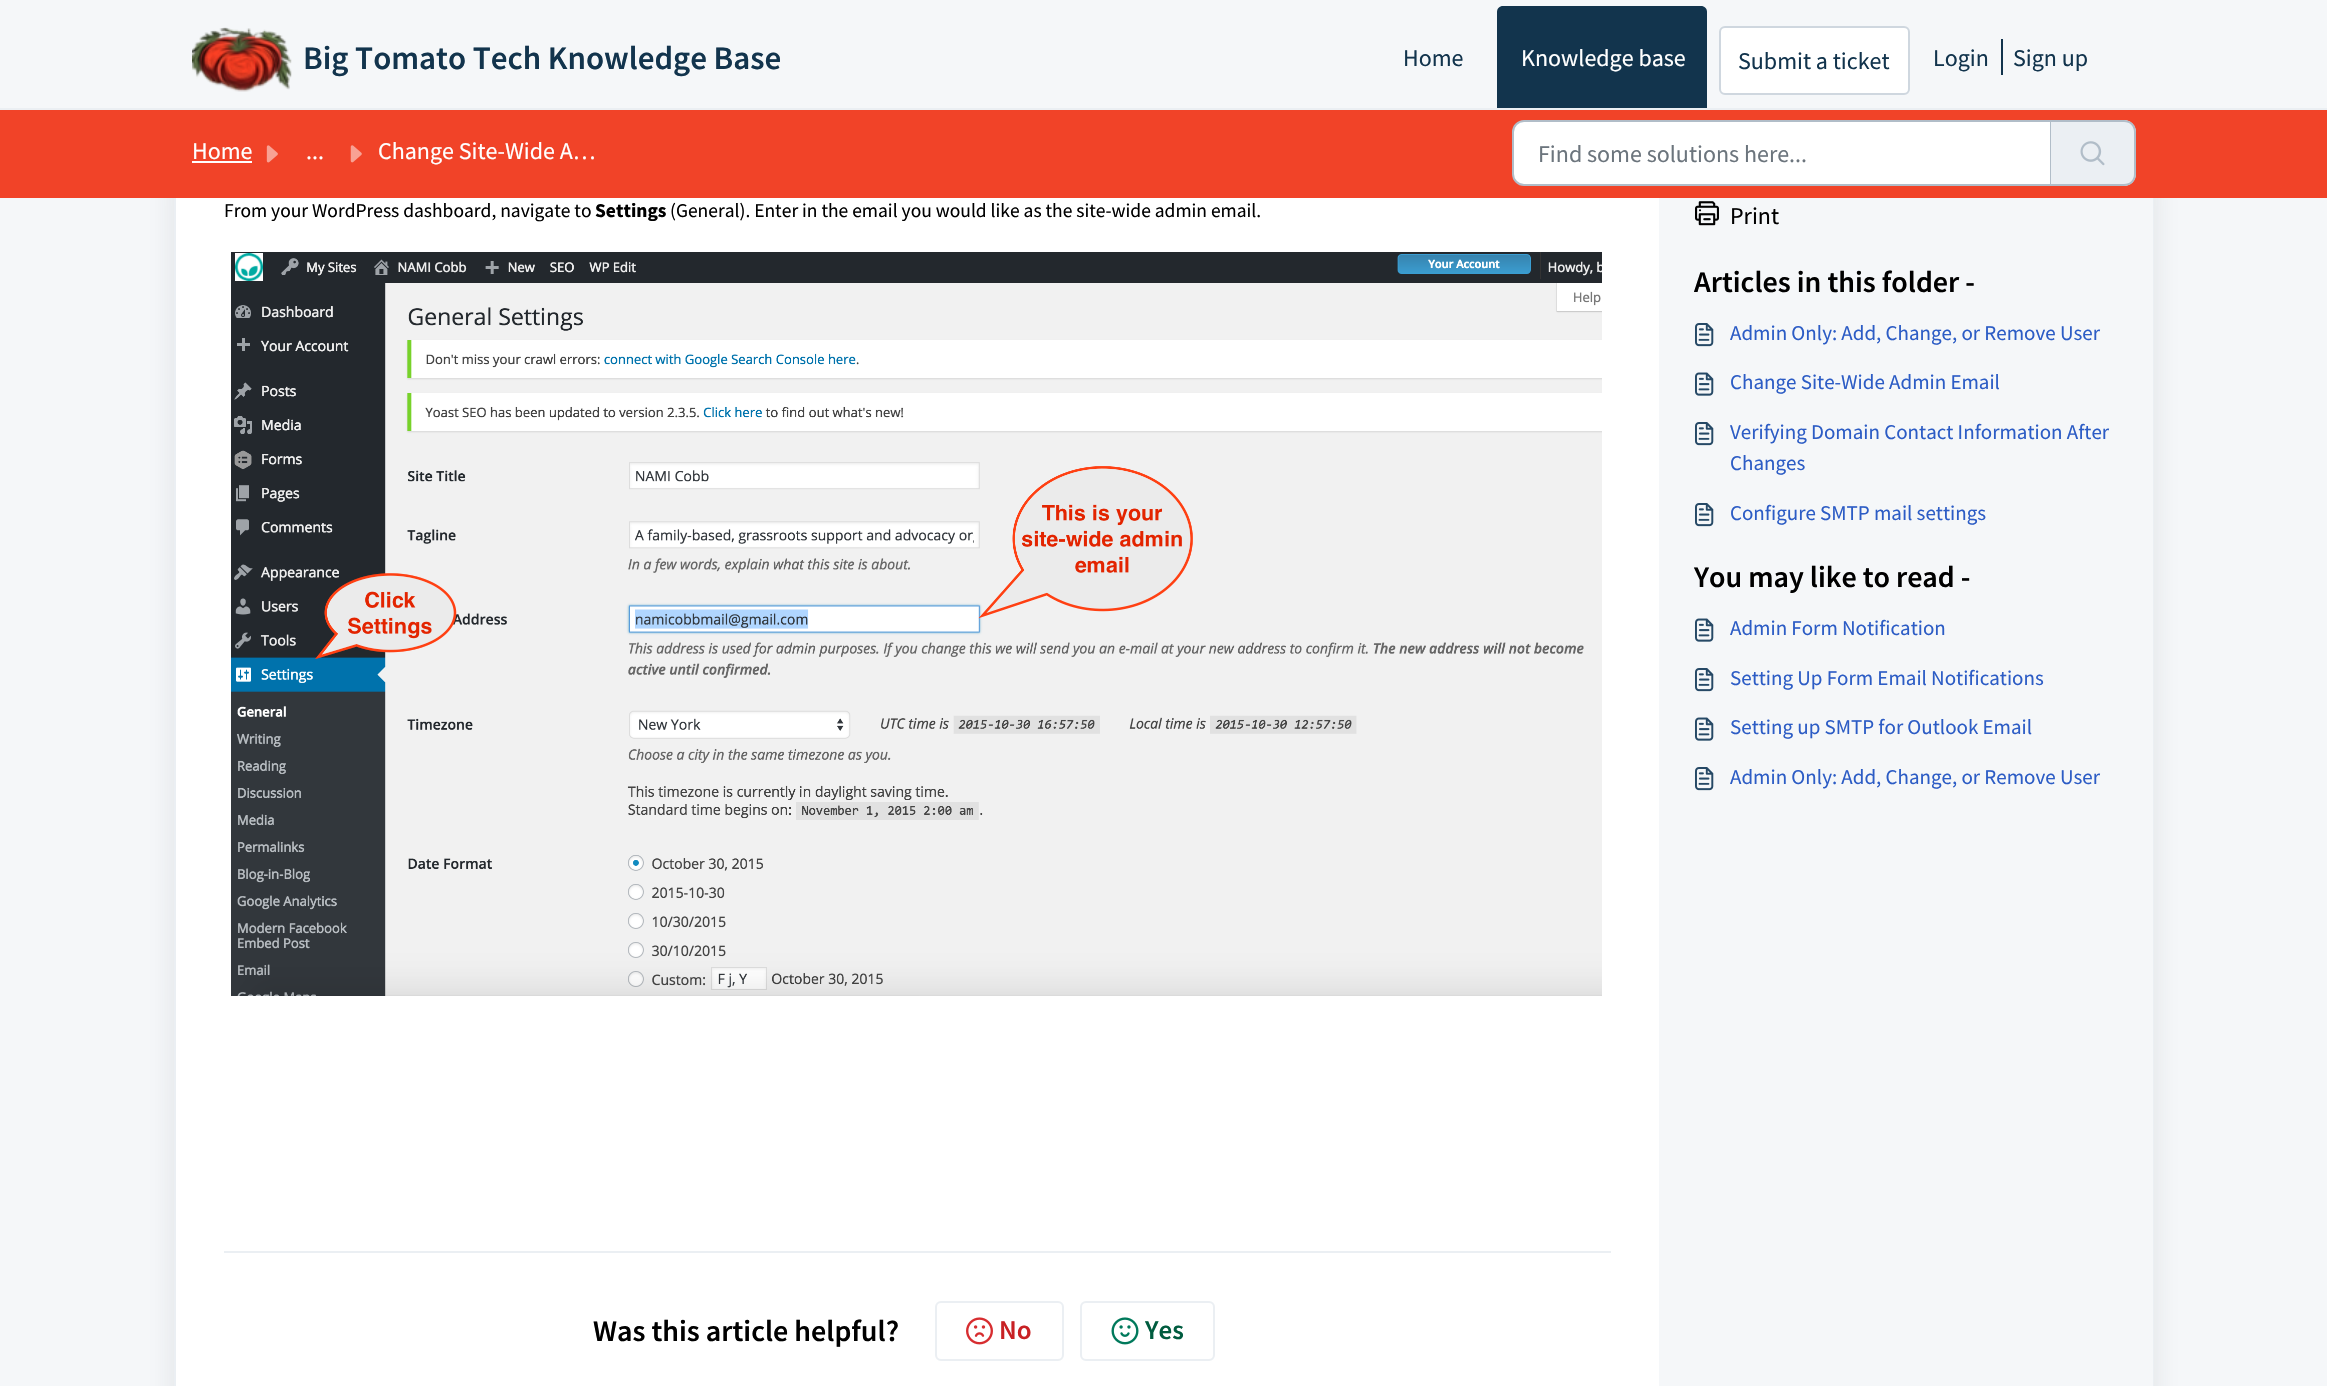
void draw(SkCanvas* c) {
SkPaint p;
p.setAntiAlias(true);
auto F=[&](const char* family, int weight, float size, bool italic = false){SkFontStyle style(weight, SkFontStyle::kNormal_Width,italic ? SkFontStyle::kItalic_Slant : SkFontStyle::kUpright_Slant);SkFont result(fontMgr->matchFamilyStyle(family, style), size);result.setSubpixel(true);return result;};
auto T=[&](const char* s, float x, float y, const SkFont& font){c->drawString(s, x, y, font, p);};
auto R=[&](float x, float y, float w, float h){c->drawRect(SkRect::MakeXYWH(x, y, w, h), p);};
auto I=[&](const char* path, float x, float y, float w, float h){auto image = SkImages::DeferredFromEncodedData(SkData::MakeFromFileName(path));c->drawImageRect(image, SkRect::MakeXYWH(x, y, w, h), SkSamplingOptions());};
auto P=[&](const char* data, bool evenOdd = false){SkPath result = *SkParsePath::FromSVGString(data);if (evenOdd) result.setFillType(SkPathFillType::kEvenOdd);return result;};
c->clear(0xfff5f7f9);
p.setColor(0xffebeff3);
R(0,108,2327,2);
I("1.png",192,27,100,65);
auto f1 = F("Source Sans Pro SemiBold",600,33);
p.setColor(0xff12344d);
T("Big Tomato Tech Knowledge Base",303,69,f1);
auto f2 = F("Source Sans Pro",400,24);
T("Home",1403,66,f2);
c->drawPath(P("M1503 6h198c3.5 0 6 2.5 6 6v96h-210v-96c0-3.5 2.5-6 6-6z"),p);
p.setColor(0xffffffff);
T("Knowledge base",1521,66,f2);
c->drawRoundRect(SkRect::MakeXYWH(1720,27,189,67),5,5,p);
p.setStroke(true);
p.setStrokeWidth(2);
p.setColor(0xffcfd7df);
c->drawRoundRect(SkRect::MakeXYWH(1720,27,189,67),5,5,p);
p.setStroke(false);
p.setColor(0xff12344d);
T("Submit a ticket",1738,69,f2);
T("Login",1933,66,f2);
R(2001,39,2,36);
T("Sign up",2013,66,f2);
p.setColor(0x1a27313a);
p.setMaskFilter(SkMaskFilter::MakeBlur(kNormal_SkBlurStyle, 14));
c->drawRoundRect(SkRect::MakeXYWH(174,168,1980,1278),18,18,p);
p.setMaskFilter(nullptr);
p.setColor(0xffffffff);
R(176,198,1483,1188);
p.setStroke(true);
p.setColor(0xffebeff3);
c->drawRect(SkRect::MakeXYWH(175,160,1978,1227),p);
p.setStroke(false);
p.setColor(0xfff14328);
R(0,110,2327,88);
p.setColor(0xffffffff);
T("Home",192,159,f2);
R(192,161,60,2);
I("2.png",266,145,12,18);
T("...",306,159,f2);
I("3.png",350,145,12,18);
T("Change Site-Wide A…",378,159,f2);
c->drawPath(P("M1524 121h527v64h-527c-6 0-11-5-11-11v-42c0-6 5-11 11-11z"),p);
p.setStroke(true);
p.setColor(0xffb1bdc8);
c->drawPath(P("M1524 121h527v64h-527c-6 0-11-5-11-11v-42c0-6 5-11 11-11z"),p);
p.setStroke(false);
p.setColor(0xff6c757d);
T("Find some solutions here...",1538,162,f2);
p.setColor(0xffebeff3);
c->drawPath(P("M2051 120h73c6.5 0 12 5.5 12 12v42c0 6.5-5.5 12-12 12h-73z"),p);
p.setColor(0xffb1bdc8);
c->drawPath(P("M2050 120h74c7 0 12 5 12 12v42c0 7-5 12-12 12h-74zm0 2h74c6 0 10 4 10 10v42c0 6-4 10-10 10h-74z",true),p);
I("4.png",2080,141,25,25);
auto f3 = F("Source Sans Pro",400,19.5);
p.setColor(0xff000000);
T("From your WordPress dashboard, navigate to",224,217,f3);
auto f4 = F("Source Sans Pro",700,19.5);
T("Settings",595,217,f4);
T("(General). Enter in the email you would like as the site-wide admin email.",670,217,f3);
I("5.png",231,252,1371,744);
p.setColor(0xffebeff3);
R(224,1251,1387,2);
auto f5 = F("Source Sans Pro SemiBold",600,30);
p.setColor(0xff000000);
T("Was this article helpful?",593,1341,f5);
p.setStroke(true);
p.setColor(0xffebeff3);
c->drawRoundRect(SkRect::MakeXYWH(936,1302,127,58),5,5,p);
I("6.png",966,1317,27,28);
auto f6 = F("Source Sans Pro SemiBold",600,27);
p.setStroke(false);
p.setColor(0xffc82124);
T("No",999,1339,f6);
p.setStroke(true);
p.setColor(0xffebeff3);
c->drawRoundRect(SkRect::MakeXYWH(1081,1302,133,58),5,5,p);
I("7.png",1111,1317,28,28);
p.setStroke(false);
p.setColor(0xff005c3f);
T("Yes",1145,1339,f6);
p.setColor(0xfff5f7f9);
R(1659,198,494,1188);
I("8.png",1695,201,24,25);
p.setColor(0xff000000);
T("Print",1730,224,f2);
T("Articles in this folder -",1694,292,f5);
I("9.png",1695,323,19,24);
auto f7 = F("Source Sans Pro",400,21);
p.setColor(0xff2c5cc5);
T("Admin Only: Add, Change, or Remove User",1730,340,f7);
I("10.png",1695,372,19,24);
T("Change Site-Wide Admin Email",1730,389,f7);
I("9.png",1695,422,19,24);
T("Verifying Domain Contact Information After",1730,439,f7);
T("Changes",1730,470,f7);
I("9.png",1695,503,19,24);
T("Configure SMTP mail settings",1730,520,f7);
p.setColor(0xff000000);
T("You may like to read -",1694,587,f5);
I("10.png",1695,618,19,24);
p.setColor(0xff2c5cc5);
T("Admin Form Notification",1730,635,f7);
I("9.png",1695,668,19,24);
T("Setting Up Form Email Notifications",1730,685,f7);
I("10.png",1695,717,19,24);
T("Setting up SMTP for Outlook Email",1730,734,f7);
I("9.png",1695,767,19,24);
T("Admin Only: Add, Change, or Remove User",1730,784,f7);
}
